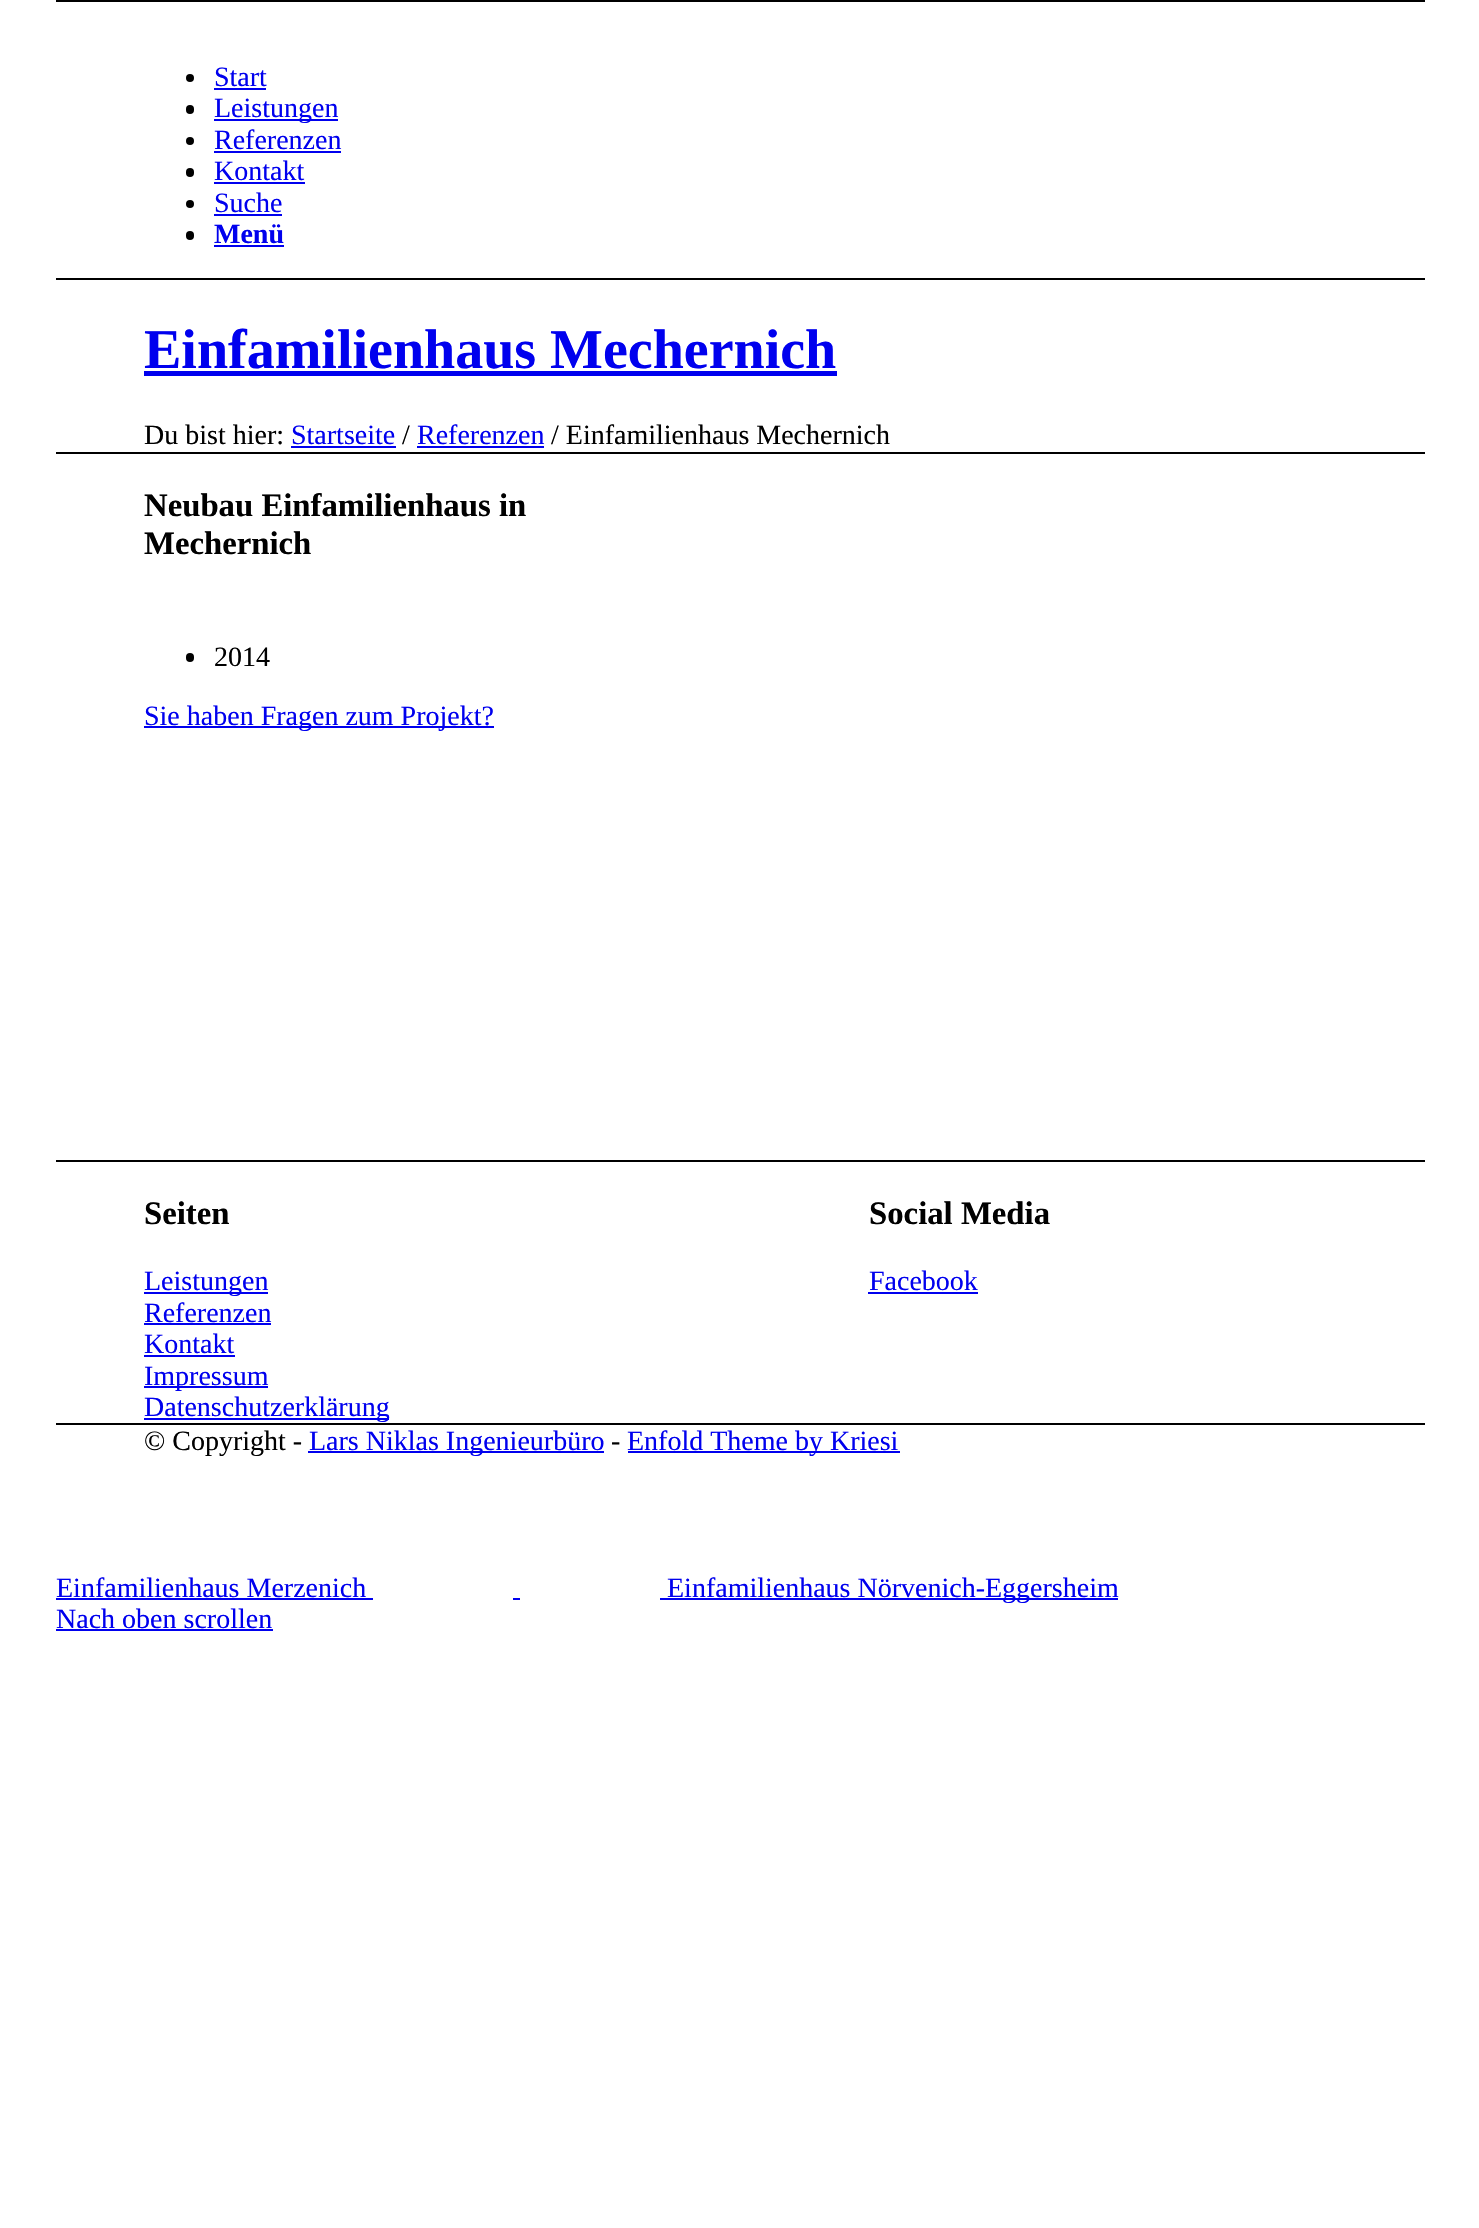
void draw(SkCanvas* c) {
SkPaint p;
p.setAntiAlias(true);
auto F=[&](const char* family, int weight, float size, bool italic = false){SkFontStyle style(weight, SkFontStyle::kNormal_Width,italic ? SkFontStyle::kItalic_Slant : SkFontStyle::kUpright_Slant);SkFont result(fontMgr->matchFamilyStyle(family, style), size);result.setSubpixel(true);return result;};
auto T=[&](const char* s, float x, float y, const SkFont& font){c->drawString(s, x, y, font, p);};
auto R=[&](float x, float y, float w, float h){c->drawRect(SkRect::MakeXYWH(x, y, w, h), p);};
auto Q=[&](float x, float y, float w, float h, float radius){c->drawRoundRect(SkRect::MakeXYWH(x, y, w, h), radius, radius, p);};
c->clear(0xffffffff);
p.setColor(0xff000000);
R(56,0,1369,2);
c->drawCircle(190,78,4,p);
auto f1 = F("Liberation Serif",400,28);
p.setColor(0xff0000ee);
T("Start",214,86,f1);
R(214,88,52,2);
p.setColor(0xff000000);
Q(186,105,8,9,4);
p.setColor(0xff0000ee);
R(214,119,124,2);
T("Leistungen",214,117,f1);
p.setColor(0xff000000);
c->drawCircle(190,141,4,p);
p.setColor(0xff0000ee);
T("Referenzen",214,149,f1);
R(214,151,127,2);
p.setColor(0xff000000);
Q(186,168,8,9,4);
p.setColor(0xff0000ee);
T("Kontakt",214,180,f1);
R(214,182,91,2);
p.setColor(0xff000000);
c->drawCircle(190,204,4,p);
p.setColor(0xff0000ee);
T("Suche",214,212,f1);
R(214,214,68,2);
p.setColor(0xff000000);
Q(186,231,8,9,4);
auto f2 = F("Liberation Serif",700,28);
p.setColor(0xff0000ee);
T("Menü",214,243,f2);
R(214,245,70,2);
p.setColor(0xff000000);
R(56,278,1369,2);
auto f3 = F("Liberation Serif",700,56);
p.setColor(0xff0000ee);
T("Einfamilienhaus Mechernich",144,368,f3);
R(144,371,693,5);
p.setColor(0xff000000);
T("Du bist hier:",144,444,f1);
p.setColor(0xff0000ee);
T("Startseite",291,444,f1);
R(291,446,105,2);
p.setColor(0xff000000);
T("/",402,444,f1);
p.setColor(0xff0000ee);
T("Referenzen",417,444,f1);
R(417,446,127,2);
p.setColor(0xff000000);
T("/ Einfamilienhaus Mechernich",551,444,f1);
R(56,452,1369,2);
auto f4 = F("Liberation Serif",700,32.75);
T("Neubau Einfamilienhaus in",144,516,f4);
T("Mechernich",144,554,f4);
Q(186,653,8,9,4);
T("2014",214,666,f1);
p.setColor(0xff0000ee);
R(144,726,350,2);
T("Sie haben Fragen zum Projekt?",144,725,f1);
p.setColor(0xff000000);
R(56,1160,1369,2);
T("Seiten",144,1224,f4);
p.setColor(0xff0000ee);
R(144,1292,124,2);
T("Leistungen",144,1290,f1);
T("Referenzen",144,1322,f1);
R(144,1323,127,2);
T("Kontakt",144,1353,f1);
R(144,1355,91,2);
R(144,1386,124,2);
T("Impressum",144,1385,f1);
R(144,1418,245,2);
T("Datenschutzerklärung",144,1416,f1);
p.setColor(0xff000000);
T("Social Media",869,1224,f4);
p.setColor(0xff0000ee);
T("Facebook",869,1290,f1);
R(868,1292,110,2);
p.setColor(0xff000000);
R(56,1423,1369,2);
T("© Copyright -",144,1450,f1);
p.setColor(0xff0000ee);
R(308,1451,296,2);
T("Lars Niklas Ingenieurbüro",309,1450,f1);
p.setColor(0xff000000);
T("-",611,1450,f1);
p.setColor(0xff0000ee);
R(628,1451,272,2);
T("Enfold Theme by Kriesi",627,1450,f1);
T("Einfamilienhaus Merzenich",56,1597,f1);
R(56,1598,317,2);
R(513,1598,7,2);
R(660,1598,458,2);
T("Einfamilienhaus Nörvenich-Eggersheim",667,1597,f1);
T("Nach oben scrollen",56,1628,f1);
R(56,1629,217,2);
}
